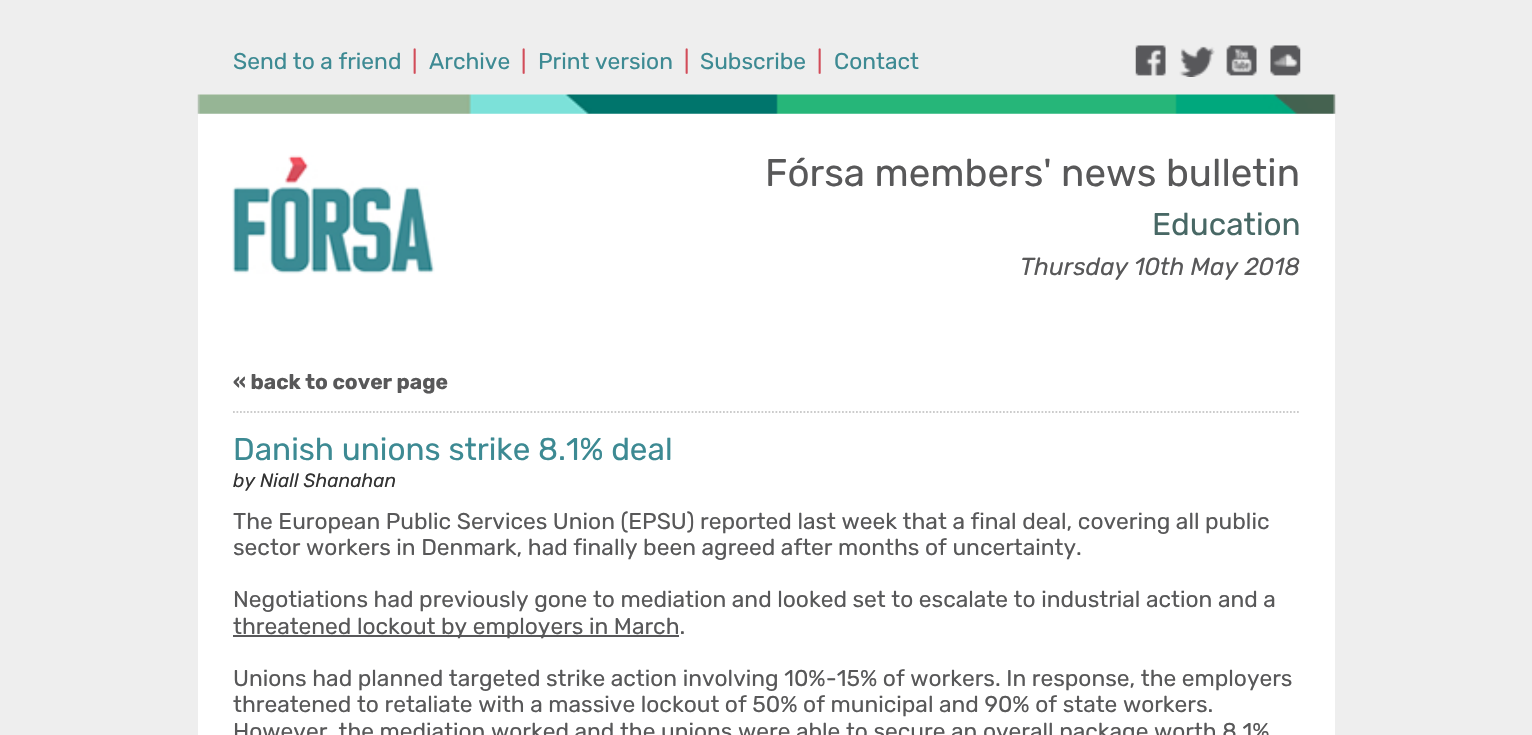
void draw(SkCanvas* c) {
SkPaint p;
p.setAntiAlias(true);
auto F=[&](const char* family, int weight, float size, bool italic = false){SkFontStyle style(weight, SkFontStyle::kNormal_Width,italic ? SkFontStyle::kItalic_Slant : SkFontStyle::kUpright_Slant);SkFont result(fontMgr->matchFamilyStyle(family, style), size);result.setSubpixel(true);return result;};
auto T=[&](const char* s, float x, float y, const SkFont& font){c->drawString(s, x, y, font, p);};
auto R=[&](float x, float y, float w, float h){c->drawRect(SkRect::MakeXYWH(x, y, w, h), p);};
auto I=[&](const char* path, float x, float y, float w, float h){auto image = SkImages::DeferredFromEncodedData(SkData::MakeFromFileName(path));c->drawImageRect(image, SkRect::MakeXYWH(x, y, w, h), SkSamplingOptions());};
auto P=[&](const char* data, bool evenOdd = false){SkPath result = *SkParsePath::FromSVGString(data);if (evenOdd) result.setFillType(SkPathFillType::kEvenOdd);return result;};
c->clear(0xffeeeeee);
p.setColor(0xffffffff);
R(198,113,1137,622);
auto f1 = F("Rubik",400,22.75);
p.setColor(0xff3d8a93);
T("Send to a friend",233,69,f1);
p.setColor(0xffd24c59);
T("|",412,69,f1);
p.setColor(0xff3d8a93);
T("Archive",429,69,f1);
p.setColor(0xffd24c59);
T("|",521,69,f1);
p.setColor(0xff3d8a93);
T("Print version",538,69,f1);
p.setColor(0xffd24c59);
T("|",684,69,f1);
p.setColor(0xff3d8a93);
T("Subscribe",700,69,f1);
p.setColor(0xffd24c59);
T("|",817,69,f1);
p.setColor(0xff3d8a93);
T("Contact",834,69,f1);
I("1.png",1135,45,31,31);
I("2.png",1179,46,36,31);
I("3.png",1226,45,31,31);
I("4.png",1270,45,31,31);
I("5.png",197,94,1139,20);
I("6.png",232,155,203,119);
auto f2 = F("Rubik",400,38.5);
p.setColor(0xff585859);
T("Fórsa members' news bulletin",765,186,f2);
auto f3 = F("Rubik",400,31.5);
p.setColor(0xff486865);
T("Education",1152,235,f3);
auto f4 = F("Rubik",400,24.5,true);
p.setColor(0xff585859);
T("Thursday 10th May 2018",1020,275,f4);
p.setStroke(true);
p.setStrokeWidth(1.8);
p.setColor(0xffcccccc);
p.setPathEffect(SkDashPathEffect::Make({{1.75f,1.75f}}, 0));
c->drawPath(P("M233 412h1067"),p);
p.setPathEffect(nullptr);
auto f5 = F("Rubik",700,21);
p.setStroke(false);
p.setColor(0xff585859);
T("« back to cover page",233,389,f5);
p.setColor(0xff3d8a93);
T("Danish unions strike 8.1% deal",233,460,f3);
auto f6 = F("Rubik",400,19.25,true);
p.setColor(0xff333333);
T("by Niall Shanahan",233,487,f6);
p.setColor(0xff585859);
T("The European Public Services Union (EPSU) reported last week that a final deal, covering all public",233,529,f1);
T("sector workers in Denmark, had finally been agreed after months of uncertainty.",233,555,f1);
T("Negotiations had previously gone to mediation and looked set to escalate to industrial action and a",233,607,f1);
p.setColor(0xff58585a);
R(233,635,446,2);
p.setColor(0xff585859);
T("threatened lockout by employers in March.",233,634,f1);
T("Unions had planned targeted strike action involving 10%-15% of workers. In response, the employers",233,686,f1);
T("threatened to retaliate with a massive lockout of 50% of municipal and 90% of state workers.",233,712,f1);
T("However, the mediation worked and the unions were able to secure an overall package worth 8.1%",233,739,f1);
}
